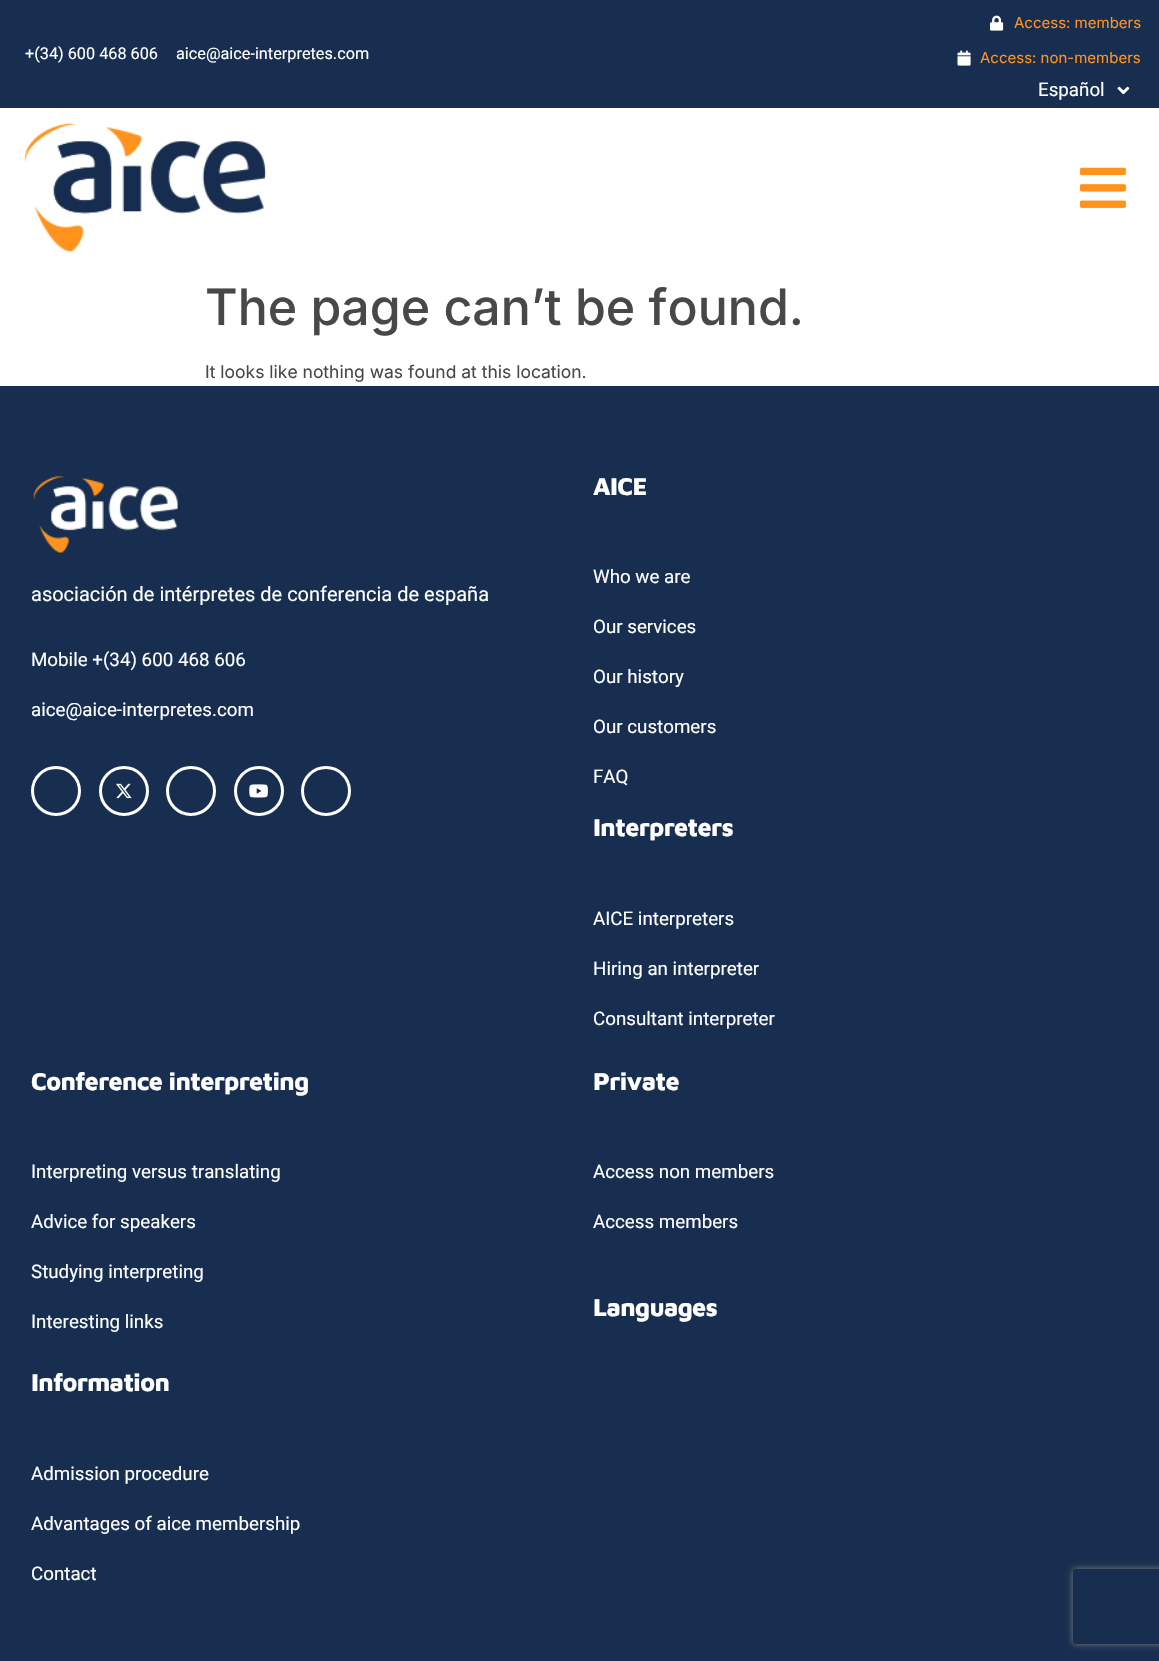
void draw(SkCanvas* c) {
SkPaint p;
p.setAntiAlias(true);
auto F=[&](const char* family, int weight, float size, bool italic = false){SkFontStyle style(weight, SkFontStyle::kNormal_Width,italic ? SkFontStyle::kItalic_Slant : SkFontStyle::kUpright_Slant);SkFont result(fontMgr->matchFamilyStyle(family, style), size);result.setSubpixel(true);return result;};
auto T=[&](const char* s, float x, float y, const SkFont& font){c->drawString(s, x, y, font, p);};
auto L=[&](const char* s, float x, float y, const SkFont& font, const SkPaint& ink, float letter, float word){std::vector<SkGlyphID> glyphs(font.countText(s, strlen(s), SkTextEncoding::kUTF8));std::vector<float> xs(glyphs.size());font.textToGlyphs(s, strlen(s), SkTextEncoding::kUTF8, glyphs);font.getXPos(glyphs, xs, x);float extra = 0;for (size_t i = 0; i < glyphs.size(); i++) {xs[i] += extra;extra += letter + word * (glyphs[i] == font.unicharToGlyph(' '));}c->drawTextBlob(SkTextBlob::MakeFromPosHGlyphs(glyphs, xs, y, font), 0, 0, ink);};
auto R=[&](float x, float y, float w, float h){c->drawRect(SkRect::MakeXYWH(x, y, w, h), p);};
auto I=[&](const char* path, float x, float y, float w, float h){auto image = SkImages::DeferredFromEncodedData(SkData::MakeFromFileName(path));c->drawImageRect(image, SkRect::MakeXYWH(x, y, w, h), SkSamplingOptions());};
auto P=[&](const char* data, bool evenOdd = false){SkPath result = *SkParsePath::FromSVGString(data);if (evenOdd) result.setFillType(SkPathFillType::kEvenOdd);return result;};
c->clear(0xffffffff);
p.setColor(0xff172e50);
R(0,0,1159,108);
auto f1 = F("Roboto",400,16.25);
p.setColor(0xffffffff);
T("+(34) 600 468 606",25,59,f1);
T("aice@aice-interpretes.com",176,59,f1);
I("1.png",990,15,14,16);
auto f2 = F("Inter",400,15);
p.setColor(0xffff931e);
T("Access: members",1014,28,f2);
I("2.png",957,50,14,16);
T("Access: non-members",980,63,f2);
auto f3 = F("Roboto",400,18.75);
p.setColor(0xffffffff);
T("Español",1038,96,f3);
I("3.png",1117,86,13,9);
I("4.png",24,123,242,129);
I("5.png",1080,167,46,41);
auto f4 = F("Inter",500,50);
p.setColor(0xff484848);
T("The page can’t be found.",205,325,f4);
auto f5 = F("Inter",400,17.5);
T("It looks like nothing was found at this location.",205,378,f5);
p.setColor(0xff172e50);
R(0,386,1159,1275);
I("6.png",33,476,145,77);
auto f6 = F("Roboto",400,20);
p.setColor(0xffffffff);
T("asociación de intérpretes de conferencia de españa",31,601,f6);
T("Mobile +(34) 600 468 606",31,666,f3);
T("aice@aice-interpretes.com",31,716,f3);
p.setStroke(true);
p.setStrokeWidth(3);
c->drawCircle(56,791,23.5,p);
c->drawCircle(124,791,23.5,p);
I("7.png",116,783,16,16);
c->drawCircle(191,791,23.5,p);
c->drawCircle(259,791,23.5,p);
I("8.png",249,784,19,14);
c->drawCircle(326,791,23.5,p);
auto f7 = F("Maven Pro",800,25);
p.setStroke(false);
L("AICE",593,495,f7,p,-.6,0);
T("Who we are",593,583,f3);
T("Our services",593,633,f3);
T("Our history",593,683,f3);
T("Our customers",593,733,f3);
T("FAQ",593,783,f3);
L("Interpreters",593,836,f7,p,-.6,0);
T("AICE interpreters",593,925,f3);
T("Hiring an interpreter",593,975,f3);
T("Consultant interpreter",593,1025,f3);
L("Conference interpreting",31,1090,f7,p,-.6,0);
T("Interpreting versus translating",31,1178,f3);
T("Advice for speakers",31,1228,f3);
T("Studying interpreting",31,1278,f3);
T("Interesting links",31,1328,f3);
L("Information",31,1391,f7,p,-.6,0);
T("Admission procedure",31,1480,f3);
T("Advantages of aice membership",31,1530,f3);
T("Contact",31,1580,f3);
L("Private",593,1090,f7,p,-.6,0);
T("Access non members",593,1178,f3);
T("Access members",593,1228,f3);
L("Languages",593,1316,f7,p,-.6,0);
c->save();
c->clipPath(P("M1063 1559h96v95h-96zm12.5 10h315c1.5 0 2.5 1 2.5 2.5v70c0 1.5-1 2.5-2.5 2.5h-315c-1.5 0-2.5-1-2.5-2.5v-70c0-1.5 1-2.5 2.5-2.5z",true),true);
p.setColor(0xff808080);
p.setMaskFilter(SkMaskFilter::MakeBlur(kNormal_SkBlurStyle, 3));
c->drawRoundRect(SkRect::MakeXYWH(1073,1569,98,75),2.5,2.5,p);
p.setMaskFilter(nullptr);
c->restore();
}
